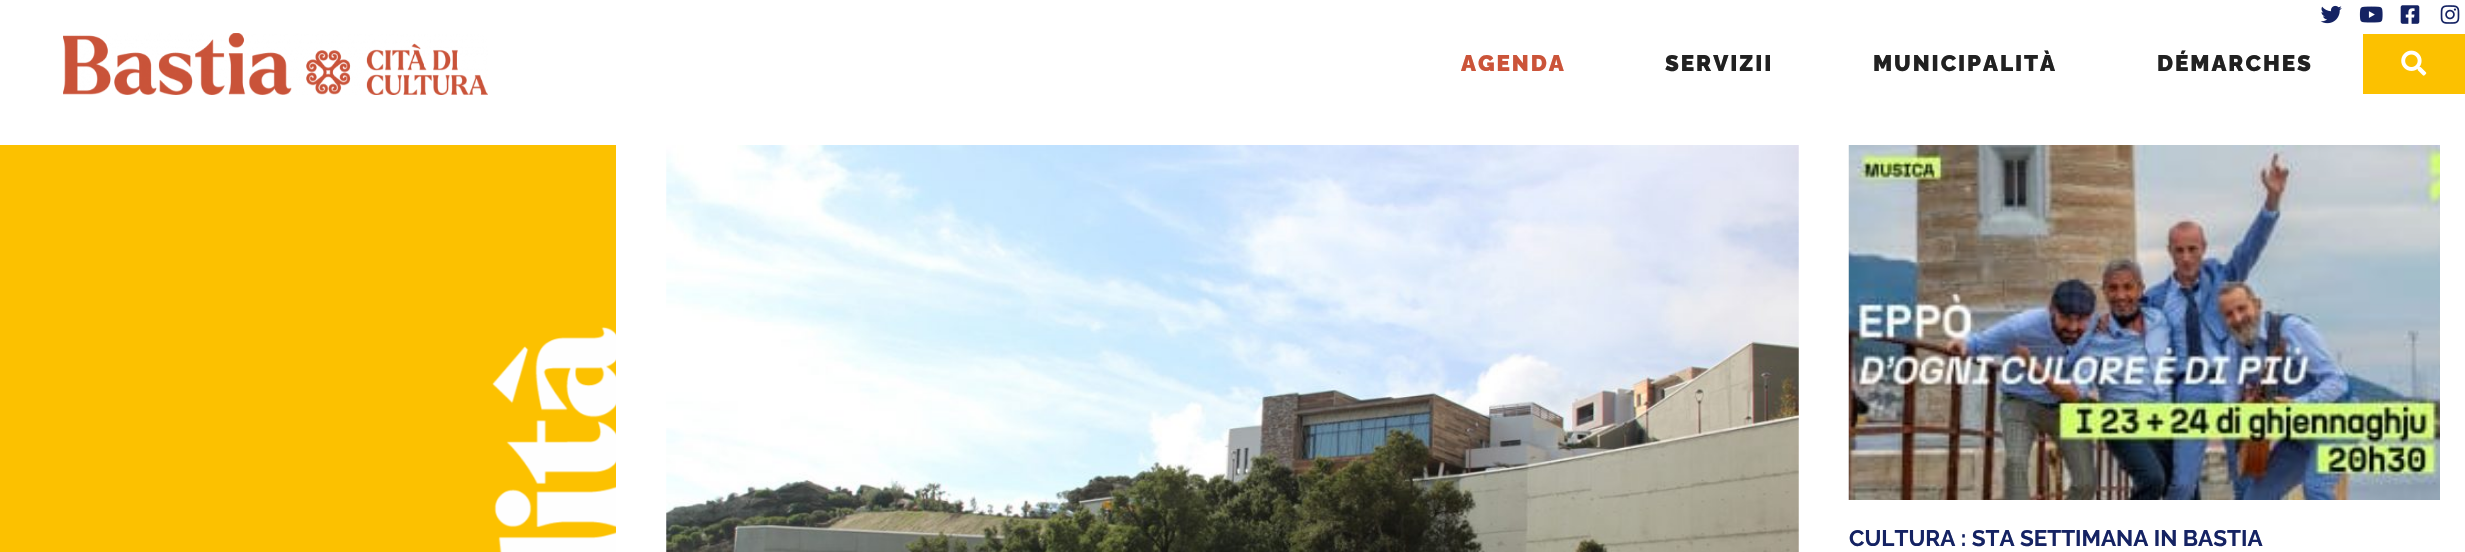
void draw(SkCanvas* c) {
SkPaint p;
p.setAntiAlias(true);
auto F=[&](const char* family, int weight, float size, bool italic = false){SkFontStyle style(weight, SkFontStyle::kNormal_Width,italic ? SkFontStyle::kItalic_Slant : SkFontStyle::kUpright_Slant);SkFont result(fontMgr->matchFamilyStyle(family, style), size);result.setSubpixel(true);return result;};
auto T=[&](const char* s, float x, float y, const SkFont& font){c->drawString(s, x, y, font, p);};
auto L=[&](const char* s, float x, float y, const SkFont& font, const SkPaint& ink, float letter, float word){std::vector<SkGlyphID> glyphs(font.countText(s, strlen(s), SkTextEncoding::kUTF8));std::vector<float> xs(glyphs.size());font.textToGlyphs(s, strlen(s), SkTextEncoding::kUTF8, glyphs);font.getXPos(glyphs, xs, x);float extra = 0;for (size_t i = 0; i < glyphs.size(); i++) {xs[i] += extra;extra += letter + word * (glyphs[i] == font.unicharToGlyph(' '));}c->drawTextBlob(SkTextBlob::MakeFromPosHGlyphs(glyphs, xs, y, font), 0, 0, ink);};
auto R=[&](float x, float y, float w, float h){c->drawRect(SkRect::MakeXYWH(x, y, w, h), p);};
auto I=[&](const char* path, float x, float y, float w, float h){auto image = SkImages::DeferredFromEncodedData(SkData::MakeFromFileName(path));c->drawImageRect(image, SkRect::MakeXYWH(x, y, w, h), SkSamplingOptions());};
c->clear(0xffffffff);
I("1.png",2320,5,22,19);
I("2.png",2359,6,24,17);
I("3.png",2400,5,20,19);
I("4.png",2440,5,20,19);
I("5.png",63,33,425,62);
auto f1 = F("Raleway",900,22.5);
p.setColor(0xffcb5439);
L("AGENDA",1461,71,f1,p,1.9,0);
p.setColor(0xff212121);
L("SERVIZII",1665,71,f1,p,1.9,0);
L("MUNICIPALITÀ",1873,71,f1,p,1.9,0);
L("DÉMARCHES",2157,71,f1,p,1.9,0);
p.setColor(0xfffcc100);
R(2363,34,102,60);
I("6.png",2401,50,26,26);
R(0,145,616,407);
I("7.png",492,327,124,225);
I("8.png",666,145,1133,407);
I("9.png",1848,145,592,355);
auto f2 = F("Raleway",700,22.5);
p.setColor(0xff152363);
T("CULTURA : STA SETTIMANA IN BASTIA",1849,546,f2);
}
